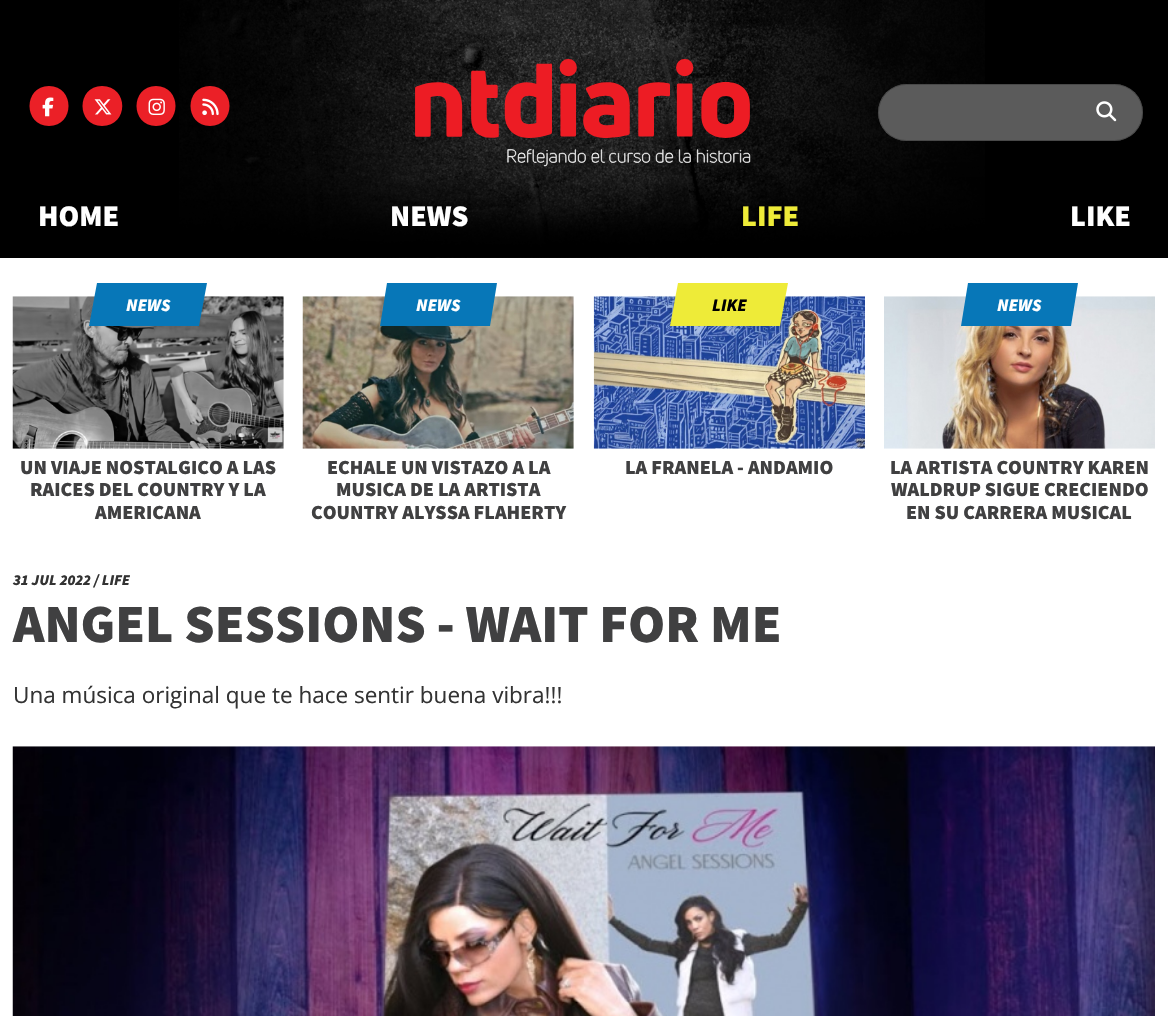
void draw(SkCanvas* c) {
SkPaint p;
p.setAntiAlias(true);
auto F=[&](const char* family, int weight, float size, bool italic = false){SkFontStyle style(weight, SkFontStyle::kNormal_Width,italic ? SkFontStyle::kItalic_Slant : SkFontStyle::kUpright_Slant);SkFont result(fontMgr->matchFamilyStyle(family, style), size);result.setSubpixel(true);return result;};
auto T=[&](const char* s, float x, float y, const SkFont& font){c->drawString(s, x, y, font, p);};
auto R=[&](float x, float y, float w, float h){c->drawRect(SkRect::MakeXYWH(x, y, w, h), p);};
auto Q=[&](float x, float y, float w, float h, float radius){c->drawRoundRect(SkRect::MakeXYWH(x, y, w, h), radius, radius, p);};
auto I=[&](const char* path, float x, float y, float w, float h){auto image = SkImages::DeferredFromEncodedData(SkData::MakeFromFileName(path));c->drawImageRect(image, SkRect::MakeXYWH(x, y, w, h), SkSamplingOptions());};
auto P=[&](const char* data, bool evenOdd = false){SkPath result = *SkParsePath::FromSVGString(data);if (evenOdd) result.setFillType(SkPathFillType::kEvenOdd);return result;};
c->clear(0xffffffff);
p.setColor(0xff000000);
R(0,0,1168,258);
I("1.png",179,0,806,258);
p.setColor(0xffeb2027);
c->drawPath(P("M49 126c26 0 26-40 0-40c-26 0-26 40 0 40z"),p);
I("2.png",42,97,12,20);
c->drawPath(P("M102 126c27 0 27-40 0-40c-26 0-26 40 0 40z"),p);
I("3.png",94,99,18,16);
c->drawPath(P("M156 126c26 0 26-40 0-40c-26 0-26 40 0 40z"),p);
I("4.png",148,98,17,17);
c->drawPath(P("M210 126c26 0 26-40 0-40c-26 0-26 40 0 40z"),p);
I("5.png",202,98,17,18);
I("6.png",415,59,336,108);
p.setColor(0xff5b5b5b);
Q(878,84,265,57,28.5);
p.setStroke(true);
p.setStrokeWidth(1);
p.setColor(0x80333333);
c->drawRoundRect(SkRect::MakeXYWH(878.5,84.5,264,56),28,28,p);
I("7.png",1096,101,21,21);
auto f1 = F("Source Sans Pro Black",900,30);
p.setStroke(false);
p.setColor(0xffffffff);
T("HOME",38,226,f1);
T("NEWS",390,226,f1);
p.setColor(0xffeeeb38);
T("LIFE",741,226,f1);
p.setColor(0xffffffff);
T("LIKE",1070,226,f1);
I("8.png",12,296,272,153);
p.setColor(0xff0777b8);
c->drawPath(P("M97 283h110l-8 43h-110z"),p);
auto f2 = F("Source Sans Pro Black",900,17.5,true);
p.setColor(0xffffffff);
T("NEWS",126,311,f2);
auto f3 = F("Source Sans Pro Black",900,20);
p.setColor(0xff404041);
T("UN VIAJE NOSTALGICO A LAS",20,474,f3);
T("RAICES DEL COUNTRY Y LA",30,496,f3);
T("AMERICANA",95,519,f3);
I("9.png",302,296,272,153);
p.setColor(0xff0777b8);
c->drawPath(P("M387 283h110l-7 43h-110z"),p);
p.setColor(0xffffffff);
T("NEWS",416,311,f2);
p.setColor(0xff404041);
T("ECHALE UN VISTAZO A LA",327,474,f3);
T("MUSICA DE LA ARTISTA",336,496,f3);
T("COUNTRY ALYSSA FLAHERTY",311,519,f3);
I("10.png",593,296,272,153);
p.setColor(0xffeeeb38);
c->drawPath(P("M678 283h110l-8 43h-110z"),p);
p.setColor(0xff000000);
T("LIKE",712,311,f2);
p.setColor(0xff404041);
T("LA FRANELA - ANDAMIO",625,474,f3);
I("11.png",884,296,271,153);
p.setColor(0xff0777b8);
c->drawPath(P("M968 283h110l-7 43h-110z"),p);
p.setColor(0xffffffff);
T("NEWS",997,311,f2);
p.setColor(0xff404041);
T("LA ARTISTA COUNTRY KAREN",890,474,f3);
T("WALDRUP SIGUE CRECIENDO",891,496,f3);
T("EN SU CARRERA MUSICAL",906,519,f3);
auto f4 = F("Source Sans Pro Black",900,15,true);
p.setColor(0xff333333);
T("31 JUL 2022 / LIFE",13,585,f4);
auto f5 = F("Source Sans Pro Black",900,53.75);
p.setColor(0xff404041);
T("ANGEL SESSIONS - WAIT FOR ME",13,642,f5);
auto f6 = F("Open Sans",400,22.5);
p.setColor(0xff333333);
T("Una música original que te hace sentir buena vibra!!!",13,703,f6);
I("12.png",12,746,1143,270);
}
